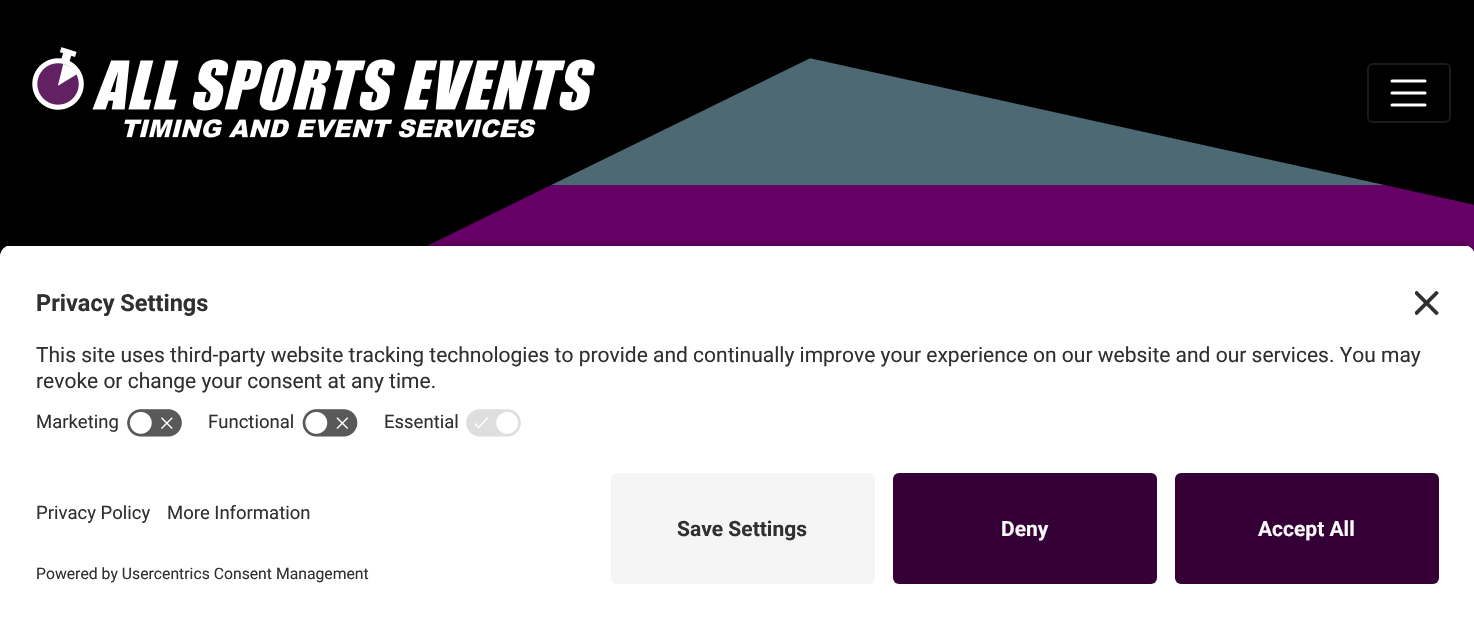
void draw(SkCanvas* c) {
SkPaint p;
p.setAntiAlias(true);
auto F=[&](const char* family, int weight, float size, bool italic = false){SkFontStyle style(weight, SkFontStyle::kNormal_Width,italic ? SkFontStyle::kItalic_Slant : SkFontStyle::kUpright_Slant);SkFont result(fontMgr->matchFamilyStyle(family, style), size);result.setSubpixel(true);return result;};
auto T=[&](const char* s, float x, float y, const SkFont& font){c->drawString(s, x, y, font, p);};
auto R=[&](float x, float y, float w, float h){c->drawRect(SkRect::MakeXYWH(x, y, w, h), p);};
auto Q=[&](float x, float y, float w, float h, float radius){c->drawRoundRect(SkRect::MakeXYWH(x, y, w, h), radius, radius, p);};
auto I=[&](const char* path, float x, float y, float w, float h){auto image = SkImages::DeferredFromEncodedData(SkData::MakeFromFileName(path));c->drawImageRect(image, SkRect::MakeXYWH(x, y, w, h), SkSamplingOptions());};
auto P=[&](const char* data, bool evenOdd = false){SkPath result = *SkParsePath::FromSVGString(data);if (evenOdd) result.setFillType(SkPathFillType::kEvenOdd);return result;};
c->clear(0xff660066);
p.setColor(0xff4d6973);
R(551,58,834,127);
p.setColor(0xff000000);
c->drawPath(P("M0 455l929-455h-929z"),p);
c->drawPath(P("M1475 205l-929-205h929z"),p);
I("1.png",32,47,563,91);
p.setStroke(true);
p.setStrokeWidth(2);
p.setColor(0xff1a1a1a);
c->drawRoundRect(SkRect::MakeXYWH(1368,64,82,58),5,5,p);
p.setStrokeWidth(3);
p.setStrokeCap(SkPaint::kRound_Cap);
p.setColor(0xffffffff);
c->drawPath(P("M1392 81h33m-33 12h33m-33 12h33"),p);
p.setStroke(false);
p.setColor(0xcc000000);
p.setMaskFilter(SkMaskFilter::MakeBlur(kNormal_SkBlurStyle, 5));
c->drawRoundRect(SkRect::MakeXYWH(0,249,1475,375),12,12,p);
p.setMaskFilter(nullptr);
c->save();
c->clipPath(P("M12 245h1451c6.5 0 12 5.5 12 12v204h-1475v-204c0-6.5 5.5-12 12-12z"),true);
p.setColor(0xffffffff);
R(0,246,1474,215);
R(0,246,1474,155);
c->restore();
auto f1 = F("Roboto",700,23.5);
p.setColor(0xff303030);
T("Privacy Settings",36,311,f1);
I("2.png",1415,291,24,24);
auto f2 = F("Roboto",400,21);
T("This site uses third-party website tracking technologies to provide and continually improve your experience on our website and our services. You may",36,362,f2);
T("revoke or change your consent at any time.",36,388,f2);
auto f3 = F("Roboto",400,18.5);
T("Marketing",36,428,f3);
I("3.png",127,409,55,28);
T("Functional",208,428,f3);
I("4.png",302,409,56,28);
T("Essential",384,428,f3);
I("5.png",466,409,55,28);
p.setColor(0xffffffff);
R(0,461,1474,158);
p.setColor(0xff303030);
T("Privacy Policy",36,519,f3);
T("More Information",167,519,f3);
auto f4 = F("Roboto",400,15.75);
T("Powered by Usercentrics Consent Management",36,579,f4);
p.setColor(0xfff5f5f5);
Q(611,473,264,111,6);
auto f5 = F("Roboto",700,21);
p.setColor(0xff303030);
T("Save Settings",677,536,f5);
p.setColor(0xff350035);
Q(893,473,264,111,6);
p.setColor(0xfffafafa);
T("Deny",1001,536,f5);
p.setColor(0xff350035);
Q(1175,473,264,111,6);
p.setColor(0xfffafafa);
T("Accept All",1258,536,f5);
}
